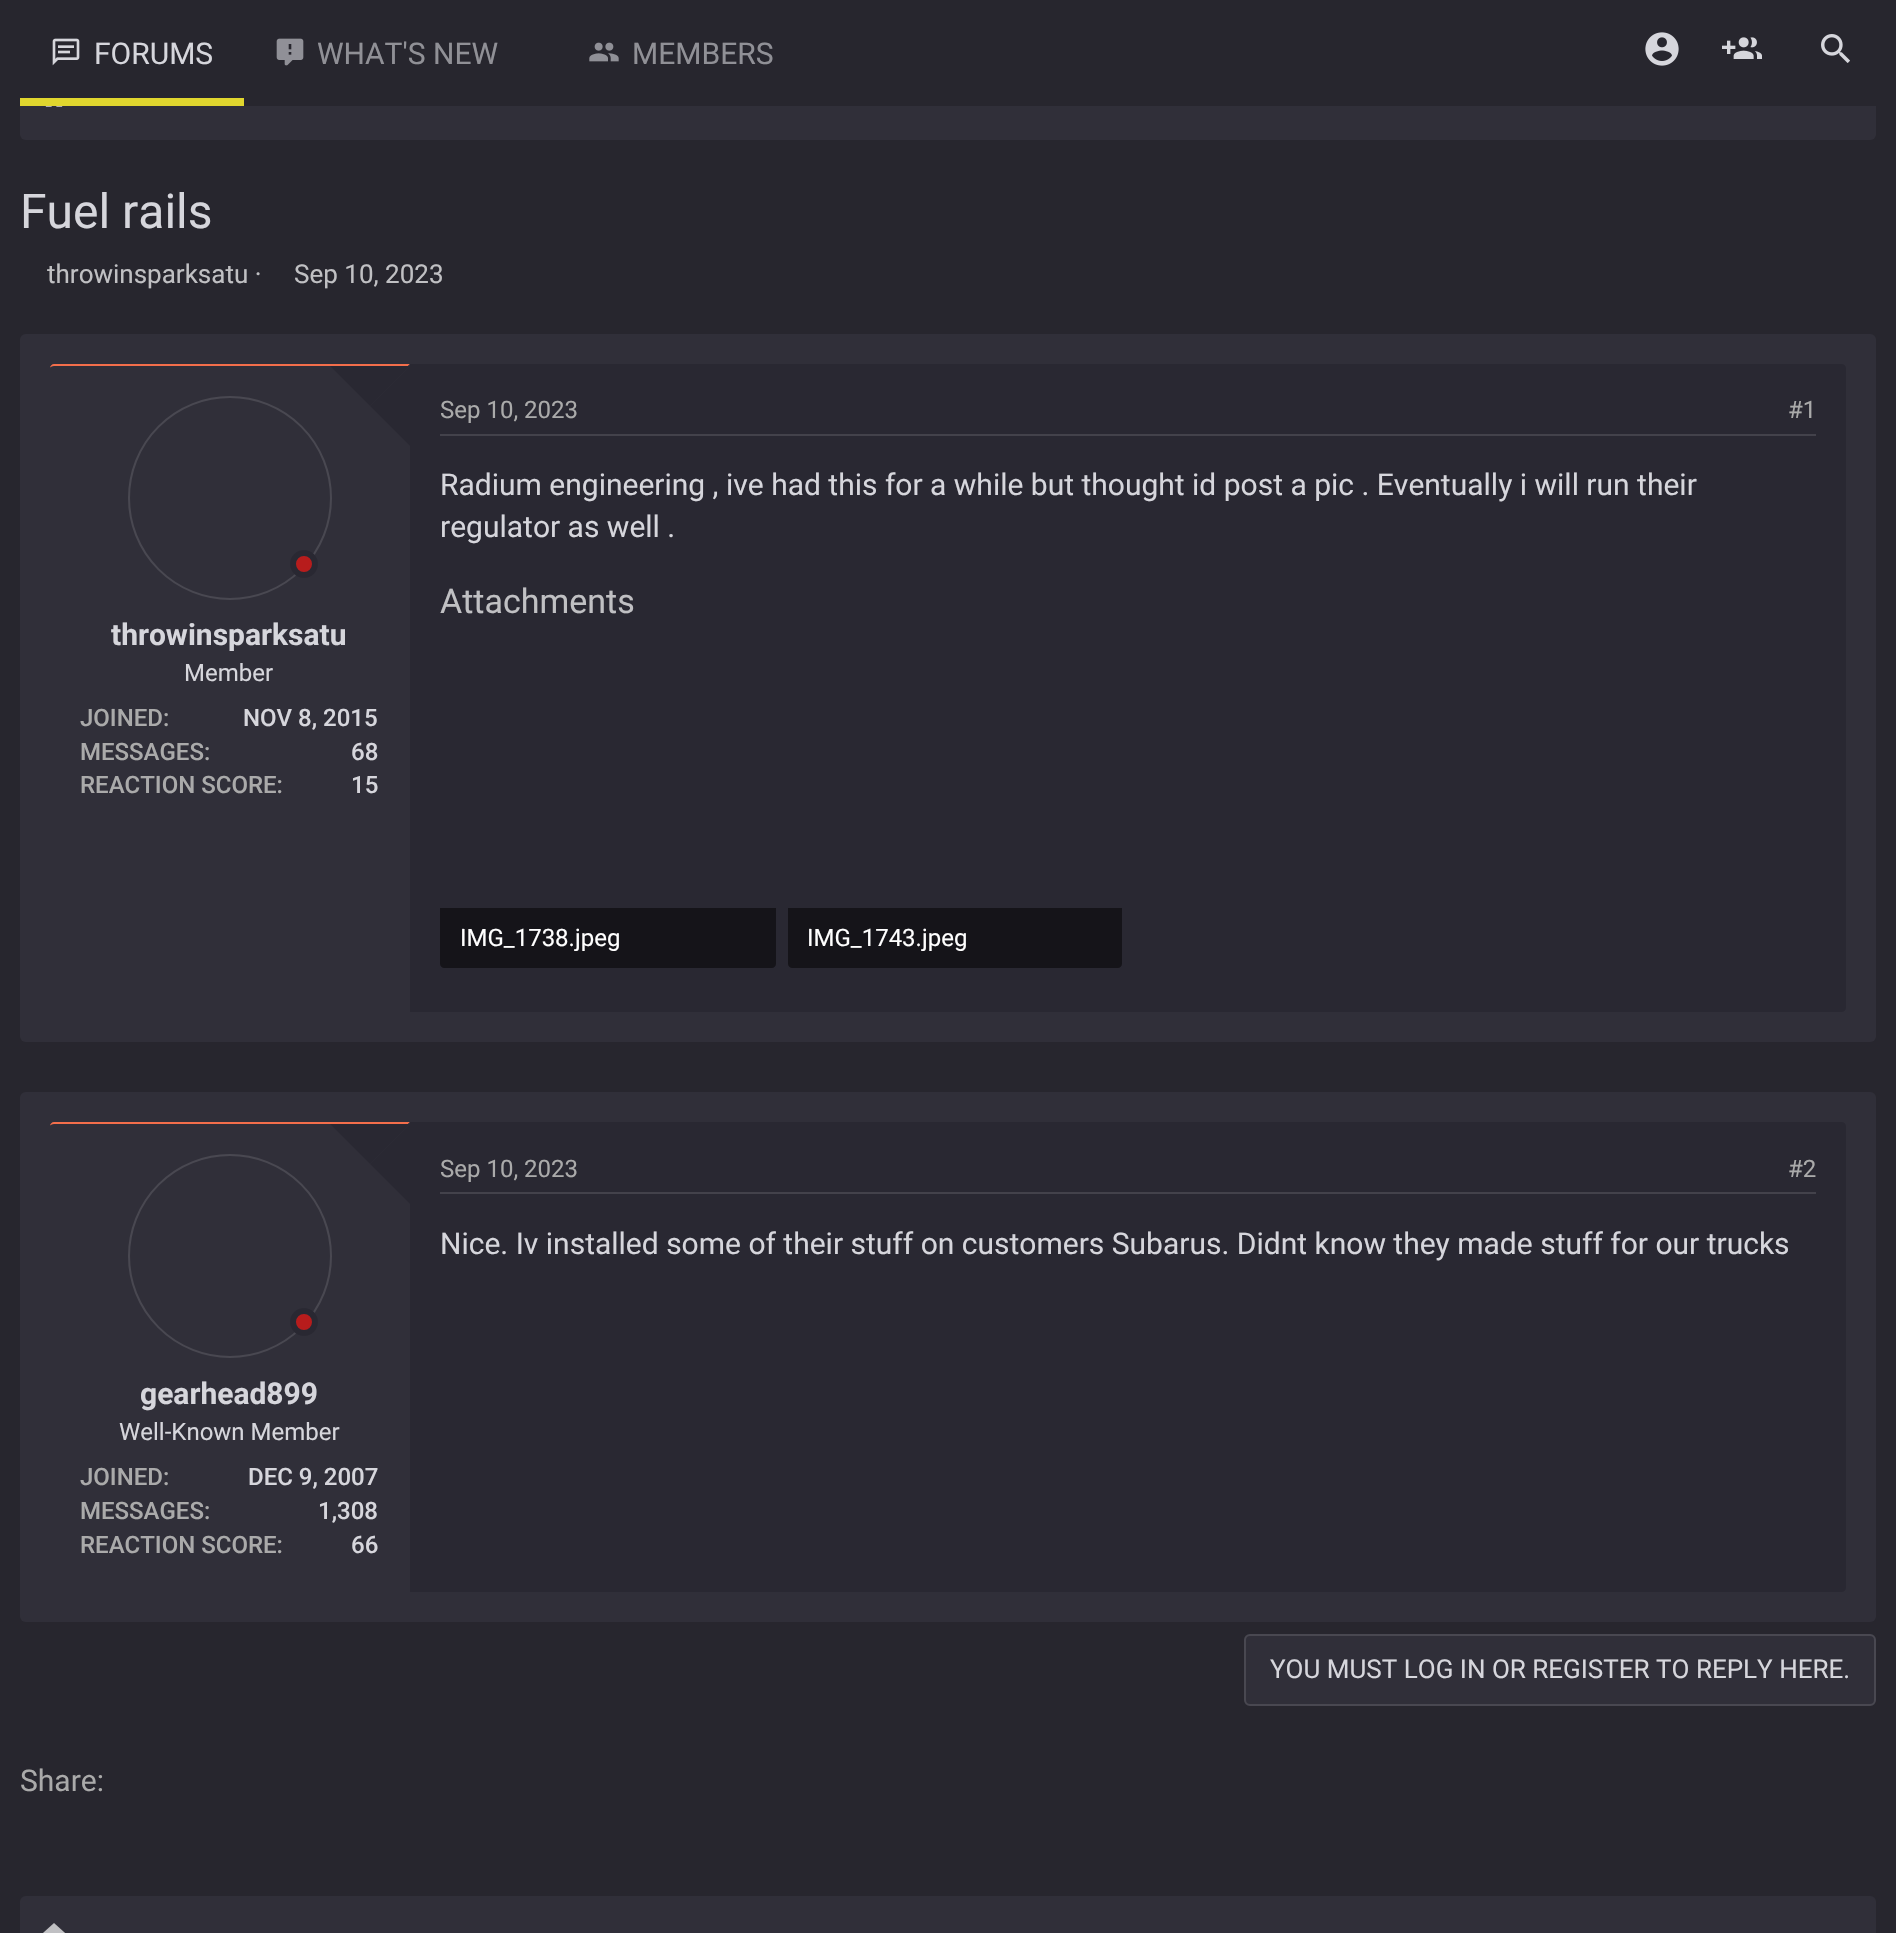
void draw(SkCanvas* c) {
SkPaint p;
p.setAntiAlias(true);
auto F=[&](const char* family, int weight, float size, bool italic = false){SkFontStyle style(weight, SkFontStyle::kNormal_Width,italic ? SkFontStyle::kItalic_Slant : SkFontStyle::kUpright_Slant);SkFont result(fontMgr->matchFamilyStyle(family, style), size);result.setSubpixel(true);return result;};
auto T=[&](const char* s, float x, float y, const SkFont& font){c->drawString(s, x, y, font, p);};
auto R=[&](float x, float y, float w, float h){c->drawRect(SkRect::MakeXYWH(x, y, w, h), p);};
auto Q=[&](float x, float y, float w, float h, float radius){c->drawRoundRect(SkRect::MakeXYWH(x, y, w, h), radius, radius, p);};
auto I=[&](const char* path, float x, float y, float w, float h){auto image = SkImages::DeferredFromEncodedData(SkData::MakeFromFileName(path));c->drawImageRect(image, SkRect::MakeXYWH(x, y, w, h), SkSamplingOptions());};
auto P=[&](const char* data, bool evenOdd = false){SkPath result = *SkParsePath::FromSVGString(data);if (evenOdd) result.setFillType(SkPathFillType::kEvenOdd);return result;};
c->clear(0xff27262e);
p.setColor(0xff302f39);
Q(20,60,1856,80,6);
p.setColor(0xff27262e);
R(20,60,1856,46);
p.setColor(0xffe0d62e);
R(20,98,224,8);
I("1.png",52,38,28,28);
auto f1 = F("Roboto",400,30);
p.setColor(0xffd6d6dc);
T("FORUMS",94,64,f1);
I("2.png",276,38,28,28);
p.setColor(0xff909096);
T("WHAT'S NEW",317,64,f1);
I("3.png",589,42,30,20);
T("MEMBERS",632,64,f1);
I("4.png",1645,32,34,34);
I("5.png",1722,37,40,22);
I("6.png",1821,34,29,29);
I("7.png",45,106,18,1);
auto f2 = F("Roboto",400,48);
p.setColor(0xffd6d6dc);
T("Fuel rails",20,228,f2);
auto f3 = F("Roboto",400,26);
p.setColor(0xffc0c0c3);
T("throwinsparksatu ·",47,283,f3);
T("Sep 10, 2023",294,283,f3);
p.setColor(0xff302f39);
Q(20,334,1856,708,6);
p.setColor(0xfff36e4b);
c->drawPath(P("M54 364c-2 0-4 2-4 4c0-1 2-2 4-2h354l2-2z"),p);
p.setColor(0xff302f39);
c->drawPath(P("M410 364l-2 2v646h2z"),p);
p.setStroke(true);
p.setStrokeWidth(2);
p.setColor(0xff494851);
c->drawCircle(230,498,101,p);
p.setStroke(false);
p.setColor(0xffb71c1c);
c->drawCircle(304,564,11,p);
p.setStroke(true);
p.setStrokeWidth(6);
p.setColor(0xff292832);
c->drawCircle(304,564,11,p);
p.setStroke(false);
c->drawPath(P("M330 366h80l-40 40z"),p);
c->drawPath(P("M410 366v80l-40-40z"),p);
auto f4 = F("Roboto",700,30);
p.setColor(0xffd6d6dc);
T("throwinsparksatu",111,645,f4);
auto f5 = F("Roboto",400,24);
T("Member",184,681,f5);
auto f6 = F("Roboto",500,24);
p.setColor(0xffaaaaaa);
T("JOINED:",80,726,f6);
p.setColor(0xffd6d6dc);
T("NOV 8, 2015",243,726,f6);
p.setColor(0xffaaaaaa);
T("MESSAGES:",80,760,f6);
p.setColor(0xffd6d6dc);
T("68",351,760,f6);
p.setColor(0xffaaaaaa);
T("REACTION SCORE:",80,793,f6);
p.setColor(0xffd6d6dc);
T("15",351,793,f6);
p.setColor(0xff292832);
c->drawPath(P("M410 364h1432c2 0 4 2 4 4v640c0 2-2 4-4 4h-1432z"),p);
p.setColor(0xff43424b);
R(440,434,1376,2);
p.setColor(0xffaaaaaa);
T("Sep 10, 2023",440,418,f5);
T("#1",1788,418,f5);
p.setColor(0xffd6d6dc);
T("Radium engineering , ive had this for a while but thought id post a pic . Eventually i will run their",440,495,f1);
T("regulator as well .",440,537,f1);
auto f7 = F("Roboto",400,34);
p.setColor(0xffc0c0c3);
T("Attachments",440,613,f7);
p.setColor(0xff151419);
c->drawPath(P("M440 908h336v56c0 2-2 4-4 4h-328c-2 0-4-2-4-4z"),p);
p.setColor(0xffffffff);
T("IMG_1738.jpeg",460,946,f5);
p.setColor(0xff151419);
c->drawPath(P("M788 908h334v56c0 2-2 4-4 4h-326c-2 0-4-2-4-4z"),p);
p.setColor(0xffffffff);
T("IMG_1743.jpeg",807,946,f5);
p.setColor(0xff302f39);
Q(20,1092,1856,530,6);
p.setColor(0xff292832);
c->drawPath(P("M410 1122h1432c2 0 4 2 4 4v462c0 2-2 4-4 4h-1432z"),p);
p.setColor(0xff43424b);
R(440,1192,1376,2);
p.setColor(0xffaaaaaa);
T("Sep 10, 2023",440,1177,f5);
T("#2",1788,1177,f5);
p.setColor(0xffd6d6dc);
T("Nice. Iv installed some of their stuff on customers Subarus. Didnt know they made stuff for our trucks",440,1254,f1);
p.setColor(0xfff36e4b);
c->drawPath(P("M54 1122c-2 0-4 2-4 4c0-1 2-2 4-2h354l2-2z"),p);
p.setColor(0xff302f39);
c->drawPath(P("M410 1122l-2 2v468h2z"),p);
p.setStroke(true);
p.setStrokeWidth(2);
p.setColor(0xff494851);
c->drawCircle(230,1256,101,p);
p.setStroke(false);
p.setColor(0xffb71c1c);
c->drawCircle(304,1322,11,p);
p.setStroke(true);
p.setStrokeWidth(6);
p.setColor(0xff292832);
c->drawCircle(304,1322,11,p);
p.setStroke(false);
c->drawPath(P("M330 1124h80l-40 40z"),p);
c->drawPath(P("M410 1124v80l-40-40z"),p);
p.setColor(0xffd6d6dc);
T("gearhead899",140,1404,f4);
T("Well-Known Member",119,1440,f5);
p.setColor(0xffaaaaaa);
T("JOINED:",80,1485,f6);
p.setColor(0xffd6d6dc);
T("DEC 9, 2007",248,1485,f6);
p.setColor(0xffaaaaaa);
T("MESSAGES:",80,1519,f6);
p.setColor(0xffd6d6dc);
T("1,308",318,1519,f6);
p.setColor(0xffaaaaaa);
T("REACTION SCORE:",80,1553,f6);
p.setColor(0xffd6d6dc);
T("66",351,1553,f6);
p.setColor(0xff302f39);
c->drawRoundRect(SkRect::MakeXYWH(1245,1635,630,70),5,5,p);
p.setStroke(true);
p.setStrokeWidth(2);
p.setColor(0xff494851);
c->drawRoundRect(SkRect::MakeXYWH(1245,1635,630,70),5,5,p);
p.setStroke(false);
p.setColor(0xffd6d6dc);
T("YOU MUST LOG IN OR REGISTER TO REPLY HERE.",1270,1678,f3);
p.setColor(0xffaaaaaa);
T("Share:",20,1791,f1);
p.setColor(0xff302f39);
Q(20,1896,1856,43,6);
I("8.png",43,1923,22,10);
}
